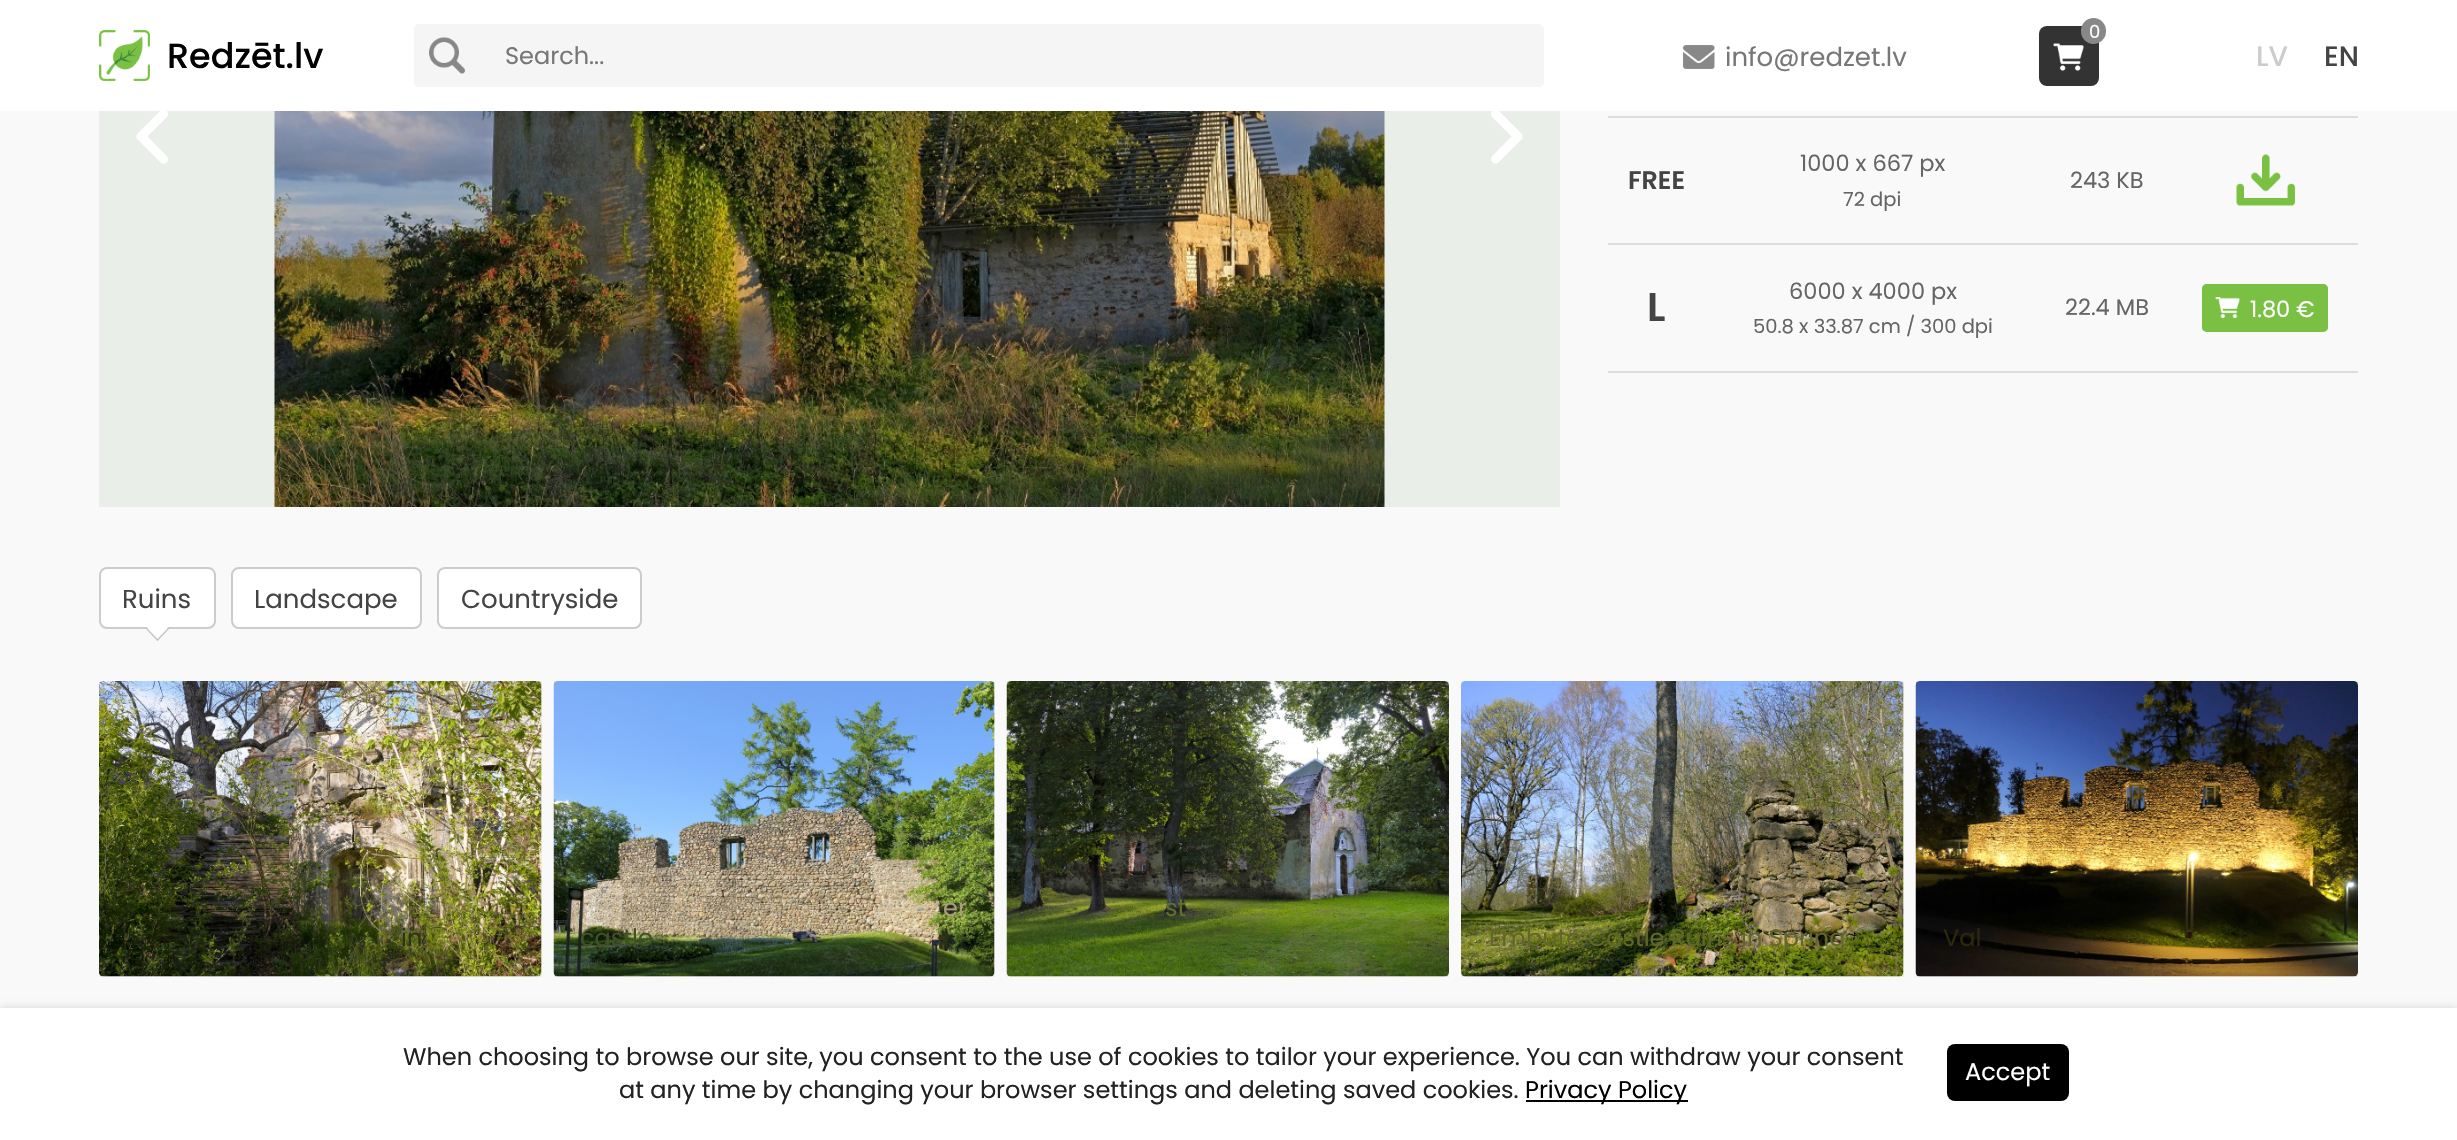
void draw(SkCanvas* c) {
SkPaint p;
p.setAntiAlias(true);
auto F=[&](const char* family, int weight, float size, bool italic = false){SkFontStyle style(weight, SkFontStyle::kNormal_Width,italic ? SkFontStyle::kItalic_Slant : SkFontStyle::kUpright_Slant);SkFont result(fontMgr->matchFamilyStyle(family, style), size);result.setSubpixel(true);return result;};
auto T=[&](const char* s, float x, float y, const SkFont& font){c->drawString(s, x, y, font, p);};
auto R=[&](float x, float y, float w, float h){c->drawRect(SkRect::MakeXYWH(x, y, w, h), p);};
auto Q=[&](float x, float y, float w, float h, float radius){c->drawRoundRect(SkRect::MakeXYWH(x, y, w, h), radius, radius, p);};
auto I=[&](const char* path, float x, float y, float w, float h){auto image = SkImages::DeferredFromEncodedData(SkData::MakeFromFileName(path));c->drawImageRect(image, SkRect::MakeXYWH(x, y, w, h), SkSamplingOptions());};
auto P=[&](const char* data, bool evenOdd = false){SkPath result = *SkParsePath::FromSVGString(data);if (evenOdd) result.setFillType(SkPathFillType::kEvenOdd);return result;};
c->clear(0xfff9f9f9);
p.setColor(0xffffffff);
R(0,0,2457,111);
p.setColor(0xff333333);
Q(2039,26,60,60,8);
I("1.png",2053,43,31,28);
p.setColor(0xff888888);
Q(2081,18,25,26,12.5);
auto f1 = F("Poppins",400,18);
p.setColor(0xffffffff);
T("0",2089,38,f1);
I("2.png",99,30,51,51);
auto f2 = F("Poppins",500,35);
p.setColor(0xff000000);
T("Redzēt.lv",167,68,f2);
p.setColor(0xfff5f5f5);
Q(414,24,1130,63,5);
I("3.png",429,37,36,37);
auto f3 = F("Poppins",400,24);
p.setColor(0xff777777);
T("Search...",505,64,f3);
I("4.png",1683,45,32,24);
auto f4 = F("Poppins",400,26);
T("info@redzet.lv",1725,66,f4);
auto f5 = F("Poppins",500,28);
p.setColor(0xffcccccc);
T("LV",2256,66,f5);
p.setColor(0xff444444);
T("EN",2324,66,f5);
p.setColor(0xffeaeee9);
R(99,111,1461,396);
I("5.png",136,111,32,53);
I("6.png",274,111,1111,396);
I("7.png",1491,111,32,53);
p.setColor(0xffdddddd);
R(1608,116,750,2);
R(1608,243,750,2);
auto f6 = F("Poppins",600,25.5);
p.setColor(0xff444444);
T("FREE",1628,189,f6);
auto f7 = F("Poppins",400,22.5);
p.setColor(0xff656565);
T("1000 x 667 px",1800,171,f7);
auto f8 = F("Poppins",400,19.5);
T("72 dpi",1843,206,f8);
T("243 KB",2070,188,f7);
I("8.png",2236,154,59,52);
p.setColor(0xffdddddd);
R(1608,371,750,2);
auto f9 = F("Poppins",600,40);
p.setColor(0xff444444);
T("L",1647,321,f9);
p.setColor(0xff656565);
T("6000 x 4000 px",1789,299,f7);
T("50.8 x 33.87 cm / 300 dpi",1753,333,f8);
T("22.4 MB",2065,315,f7);
p.setColor(0xff7ac143);
Q(2202,284,126,48,5);
I("9.png",2215,297,25,21);
p.setStroke(true);
p.setStrokeWidth(2);
c->drawRoundRect(SkRect::MakeXYWH(2203,285,124,46),4,4,p);
p.setStroke(false);
p.setColor(0xffffffff);
T("1.80 €",2250,317,f7);
c->drawRoundRect(SkRect::MakeXYWH(100,568,115,60),7,7,p);
p.setStroke(true);
p.setColor(0xffcccccc);
c->drawRoundRect(SkRect::MakeXYWH(100,568,115,60),7,7,p);
p.setStroke(false);
p.setColor(0xff444444);
T("Ruins",122,608,f4);
p.setColor(0xffffffff);
c->drawPath(P("M157.5 617.5l10.5 10.5l-10.5 11l-10.5-11z"),p);
p.setColor(0xffc5c5c5);
c->drawPath(P("M168 628l1 1l-11.5 12l-1-1z"),p);
c->drawPath(P("M147 628l11.5 12l-1 1l-11.5-12z"),p);
p.setColor(0xffffffff);
c->drawRoundRect(SkRect::MakeXYWH(232,568,189,60),7,7,p);
p.setStroke(true);
p.setColor(0xffcccccc);
c->drawRoundRect(SkRect::MakeXYWH(232,568,189,60),7,7,p);
p.setStroke(false);
p.setColor(0xff444444);
T("Landscape",254,608,f4);
p.setColor(0xffffffff);
c->drawRoundRect(SkRect::MakeXYWH(438,568,203,60),7,7,p);
p.setStroke(true);
p.setColor(0xffcccccc);
c->drawRoundRect(SkRect::MakeXYWH(438,568,203,60),7,7,p);
p.setStroke(false);
p.setColor(0xff444444);
T("Countryside",461,608,f4);
p.setColor(0xffeaeee9);
R(99,681,443,296);
I("10.png",99,681,443,296);
p.setColor(0xff2d3513);
T("in",401,946,f3);
p.setColor(0xffeaeee9);
R(554,681,441,296);
I("11.png",553,681,442,296);
p.setColor(0xffab9d7e);
T("er",943,916,f3);
p.setColor(0xff415029);
T("castle",580,946,f3);
p.setColor(0xffeaeee9);
R(1007,681,442,296);
I("12.png",1006,681,443,296);
p.setColor(0xff607028);
T("st",1165,916,f3);
p.setColor(0xffeaeee9);
R(1461,681,443,296);
I("13.png",1461,681,443,296);
p.setColor(0xff626729);
T("Embūte Castle Ruins in Spring",1489,946,f3);
p.setColor(0xffeaeee9);
R(1916,681,442,296);
I("14.png",1915,681,443,296);
p.setColor(0xff2c280a);
T("Val",1943,946,f3);
p.setColor(0x26000000);
p.setMaskFilter(SkMaskFilter::MakeBlur(kNormal_SkBlurStyle, 4));
c->drawRect(SkRect::MakeXYWH(0,1008,2457,132),p);
p.setMaskFilter(nullptr);
p.setColor(0xffffffff);
R(0,1008,2457,132);
p.setColor(0xff222222);
T("When choosing to browse our site, you consent to the use of cookies to tailor your experience. You can withdraw your consent",403,1065,f3);
p.setColor(0xff000000);
Q(1947,1044,122,57,8);
p.setColor(0xffffffff);
T("Accept",1965,1080,f3);
p.setColor(0xff222222);
T("at any time by changing your browser settings and deleting saved cookies.",619,1098,f3);
p.setColor(0xff000000);
R(1526,1100,162,2);
T("Privacy Policy",1525,1098,f3);
}
